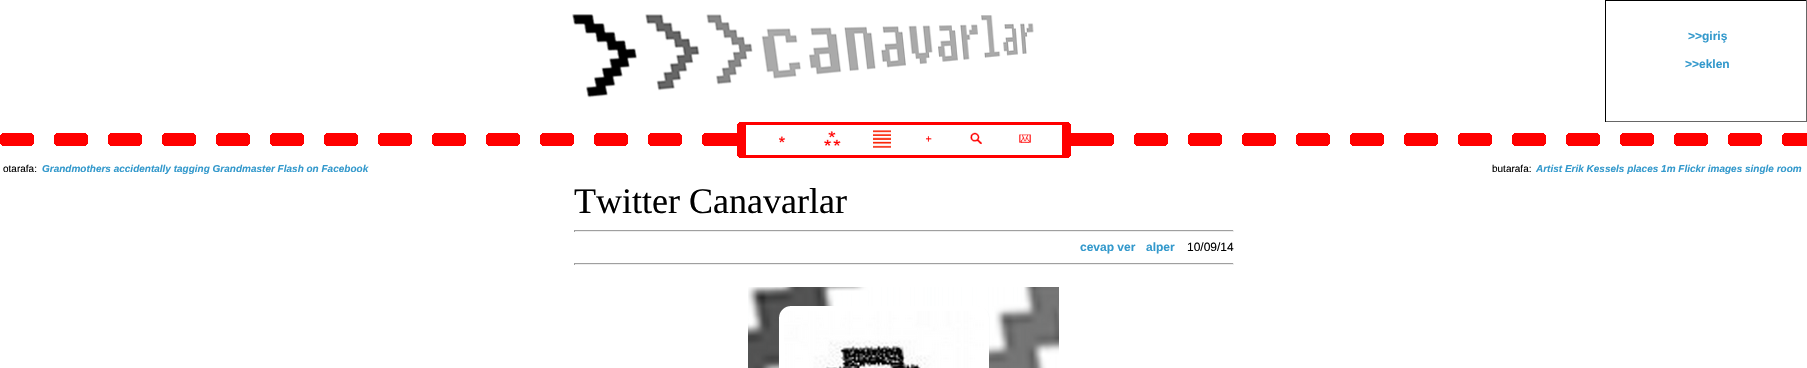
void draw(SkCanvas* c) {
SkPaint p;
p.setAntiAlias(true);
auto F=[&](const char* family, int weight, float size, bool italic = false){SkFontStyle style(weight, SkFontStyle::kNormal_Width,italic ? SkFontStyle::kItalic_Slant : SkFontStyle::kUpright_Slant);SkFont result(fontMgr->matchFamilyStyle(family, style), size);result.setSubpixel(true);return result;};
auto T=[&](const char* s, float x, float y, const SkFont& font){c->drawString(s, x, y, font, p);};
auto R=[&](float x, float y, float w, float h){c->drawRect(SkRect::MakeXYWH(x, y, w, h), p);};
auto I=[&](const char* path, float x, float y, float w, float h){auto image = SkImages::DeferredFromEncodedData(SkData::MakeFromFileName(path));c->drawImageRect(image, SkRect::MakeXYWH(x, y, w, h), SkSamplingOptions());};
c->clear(0xffffffff);
I("1.png",572,14,462,84);
p.setColor(0xff000000);
R(1605,0,202,1);
p.setColor(0xff666666);
R(1806,0,1,122);
R(1605,121,202,1);
p.setColor(0xff000000);
R(1605,0,1,122);
auto f1 = F("Liberation Sans",700,12);
p.setColor(0xff3399cc);
T(">>giriş",1688,40,f1);
T(">>eklen",1685,68,f1);
I("2.png",0,133,1807,13);
I("3.png",734,122,25,36);
I("4.png",759,122,290,36);
I("5.png",779,136,7,7);
I("6.png",824,131,17,15);
I("7.png",873,130,18,18);
I("8.png",926,136,6,6);
I("9.png",970,132,12,13);
I("10.png",1019,134,12,9);
I("11.png",1049,122,33,36);
auto f2 = F("Liberation Sans",400,10);
p.setColor(0xff000000);
T("otarafa:",3,172,f2);
auto f3 = F("Liberation Sans",700,10,true);
p.setColor(0xff3399cc);
T("Grandmothers accidentally tagging Grandmaster Flash on Facebook",42,172,f3);
p.setColor(0xff000000);
T("butarafa:",1492,172,f2);
p.setColor(0xff3399cc);
T("Artist Erik Kessels places 1m Flickr images single room",1536,172,f3);
auto f4 = F("Liberation Serif",400,36);
p.setColor(0xff000000);
T("Twitter Canavarlar",574,213,f4);
p.setColor(0xff9f9f9f);
R(574,230,660,1);
p.setColor(0xffeeeeee);
R(1233,230,1,2);
R(574,231,660,1);
p.setColor(0xff9f9f9f);
R(574,230,1,2);
p.setColor(0xff3399cc);
T("cevap ver",1080,251,f1);
T("alper",1146,251,f1);
auto f5 = F("Liberation Sans",400,12);
p.setColor(0xff000000);
T("10/09/14",1187,251,f5);
p.setColor(0xff9f9f9f);
R(574,263,660,1);
p.setColor(0xffeeeeee);
R(1233,263,1,2);
R(574,264,660,1);
p.setColor(0xff9f9f9f);
R(574,263,1,2);
I("12.png",748,287,311,81);
}
